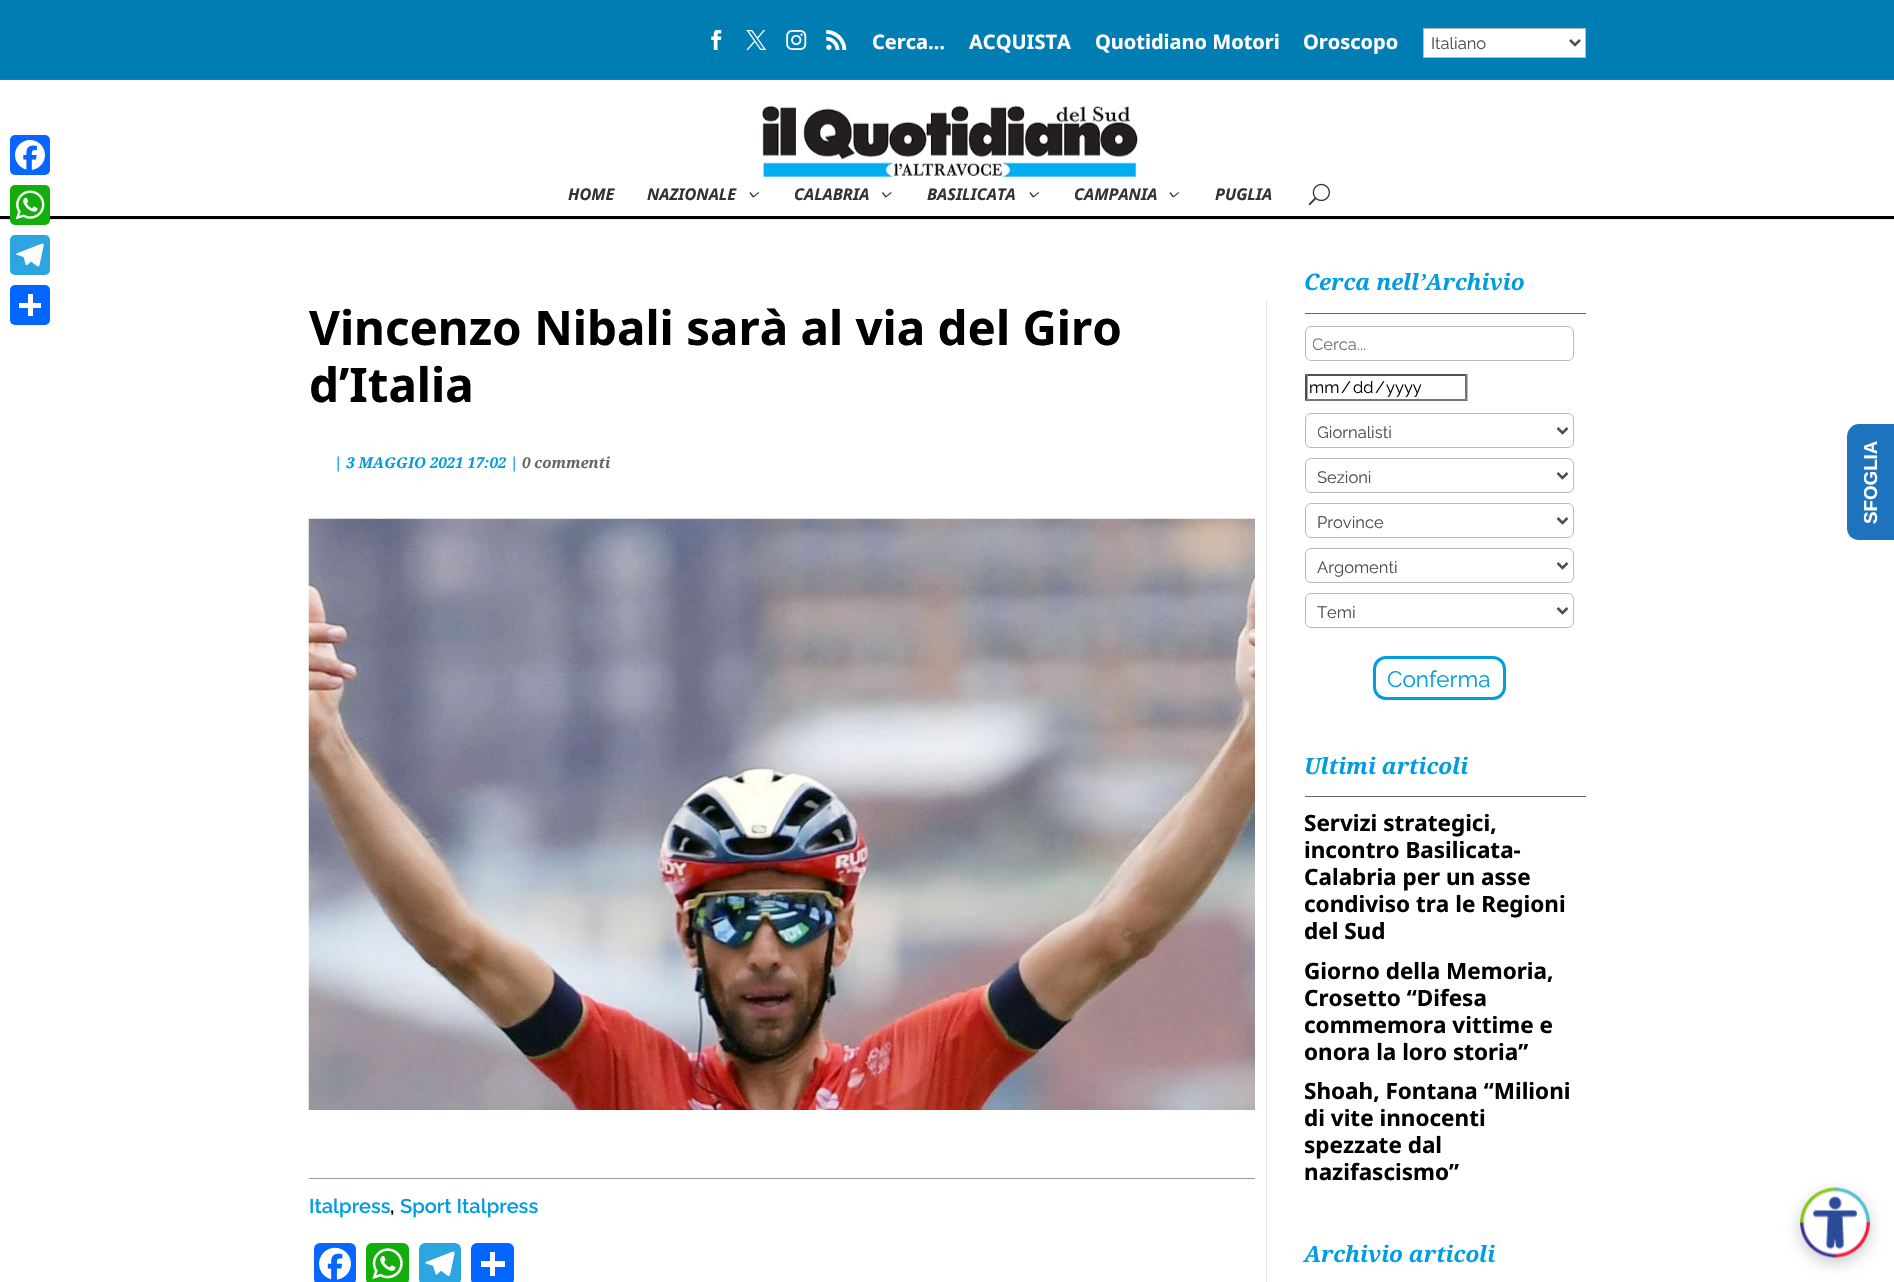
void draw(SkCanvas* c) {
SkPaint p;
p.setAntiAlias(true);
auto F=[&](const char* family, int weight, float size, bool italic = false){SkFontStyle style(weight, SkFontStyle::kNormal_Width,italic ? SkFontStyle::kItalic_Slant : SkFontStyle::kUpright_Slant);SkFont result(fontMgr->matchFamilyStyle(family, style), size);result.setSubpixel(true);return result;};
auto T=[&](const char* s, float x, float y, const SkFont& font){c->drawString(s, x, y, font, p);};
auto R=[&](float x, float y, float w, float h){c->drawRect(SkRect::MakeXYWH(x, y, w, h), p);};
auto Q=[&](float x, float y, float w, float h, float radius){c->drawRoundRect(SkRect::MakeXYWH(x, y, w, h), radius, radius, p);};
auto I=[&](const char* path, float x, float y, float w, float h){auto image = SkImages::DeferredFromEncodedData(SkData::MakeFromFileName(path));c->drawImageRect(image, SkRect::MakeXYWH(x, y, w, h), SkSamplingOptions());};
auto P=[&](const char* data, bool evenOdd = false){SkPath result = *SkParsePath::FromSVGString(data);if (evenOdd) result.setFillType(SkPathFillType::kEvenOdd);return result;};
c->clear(0xffffffff);
p.setColor(0xff0866ff);
Q(10,135,40,40,5);
I("1.png",15,140,30,30);
p.setColor(0xffe6e6e6);
R(0,219,1894,1);
p.setColor(0xff000000);
R(0,216,1894,3);
p.setColor(0xff12af0a);
Q(10,185,40,40,5);
I("2.png",15,190,30,30);
p.setColor(0xff2ca5e0);
Q(10,235,40,40,5);
I("3.png",16,243,28,24);
p.setColor(0xff0166ff);
Q(10,285,40,40,5);
p.setColor(0xffffffff);
R(28,294,5,22);
R(19,303,22,5);
p.setColor(0xff007eb4);
R(0,0,1894,79);
p.setColor(0xff666666);
R(0,79,1894,1);
I("4.png",711,30,11,20);
I("5.png",746,30,21,20);
I("6.png",786,30,21,20);
I("7.png",826,30,21,20);
auto f1 = F("Noto Sans",700,20);
p.setColor(0xffffffff);
T("Cerca…",872,49,f1);
T("ACQUISTA",969,49,f1);
T("Quotidiano Motori",1095,49,f1);
T("Oroscopo",1303,49,f1);
c->drawRect(SkRect::MakeXYWH(1423.5,28.5,162,29),p);
p.setStroke(true);
p.setStrokeWidth(1);
p.setColor(0xffbbbbbb);
c->drawRect(SkRect::MakeXYWH(1423.5,28.5,162,29),p);
p.setStrokeWidth(2.5);
p.setColor(0xff4e4e4e);
c->drawPath(P("M1570 40l5 5l5-5"),p);
auto f2 = F("Raleway",400,16.5);
p.setStroke(false);
T("Italiano",1431,49,f2);
I("8.png",762,105,376,73);
auto f3 = F("Noto Sans",700,16.25,true);
p.setColor(0xff333333);
T("HOME",568,200,f3);
T("NAZIONALE",647,200,f3);
I("9.png",749,192,10,6);
T("CALABRIA",794,200,f3);
I("10.png",882,192,10,6);
T("BASILICATA",927,200,f3);
I("9.png",1029,192,10,6);
T("CAMPANIA",1074,200,f3);
I("9.png",1169,192,10,6);
T("PUGLIA",1215,200,f3);
I("11.png",1308,183,22,23);
auto f4 = F("Noto Sans",700,47.5);
p.setColor(0xff000000);
T("Vincenzo Nibali sarà al via del Giro",309,345,f4);
T("d’Italia",309,402,f4);
auto f5 = F("Noto Serif",700,15,true);
p.setColor(0xff009de0);
T("| 3 MAGGIO 2021 17:02 |",334,468,f5);
p.setColor(0xff666666);
T("0 commenti",522,468,f5);
I("12.png",308,518,947,592);
p.setColor(0xff999999);
R(309,1178,946,1);
auto f6 = F("Raleway",600,20);
p.setColor(0xff009de0);
T("Italpress",309,1213,f6);
p.setColor(0xff000000);
T(",",390,1213,f6);
p.setColor(0xff009de0);
T("Sport Italpress",400,1213,f6);
p.setColor(0xff0866ff);
Q(314,1243,42,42,6);
I("13.png",319,1247,32,33);
p.setColor(0xff12af0a);
Q(366,1243,43,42,6);
I("14.png",372,1248,31,32);
p.setColor(0xff2ca5e0);
Q(419,1243,42,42,6);
I("15.png",425,1251,30,25);
p.setColor(0xff0166ff);
Q(471,1243,43,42,6);
p.setColor(0xffffffff);
R(490,1252,5,24);
R(481,1261,24,6);
p.setColor(0xff666666);
R(1305,313,281,1);
auto f7 = F("Noto Serif",700,22.5,true);
p.setColor(0xff009de0);
T("Cerca nell’Archivio",1304,290,f7);
p.setStroke(true);
p.setStrokeWidth(1);
p.setColor(0xffbbbbbb);
c->drawRoundRect(SkRect::MakeXYWH(1305.5,326.5,268,34),5.5,5.5,p);
c->save();
c->clipRect(SkRect::MakeXYWH(1313,334,253,20));
p.setStroke(false);
p.setColor(0xff757575);
T("Cerca...",1312,350,f2);
c->restore();
p.setColor(0xff4f4f4f);
c->drawPath(P("M1305 374h163l-3 2h-157z"),p);
p.setColor(0xff767676);
c->drawPath(P("M1467.5 374v27l-2.5-2v-23z"),p);
c->drawPath(P("M1468 401h-163l3-2h157z"),p);
p.setColor(0xff4f4f4f);
c->drawPath(P("M1305 401v-27l2.5 2v23z"),p);
p.setColor(0xff000000);
T("mm",1309,393,f2);
T("/",1341,393,f2);
T("dd",1353,393,f2);
T("/",1375,393,f2);
T("yyyy",1386,393,f2);
p.setStroke(true);
p.setColor(0xffbbbbbb);
c->drawRoundRect(SkRect::MakeXYWH(1305.5,413.5,268,34),5.5,5.5,p);
p.setStrokeWidth(2.5);
p.setColor(0xff4e4e4e);
c->drawPath(P("M1557.5 428l5 5l5-5"),p);
c->save();
c->clipRect(SkRect::MakeXYWH(1318,420,228,23));
p.setStroke(false);
T("Giornalisti",1317,438,f2);
c->restore();
p.setStroke(true);
p.setStrokeWidth(1);
p.setColor(0xffbbbbbb);
c->drawRoundRect(SkRect::MakeXYWH(1305.5,458.5,268,34),5.5,5.5,p);
p.setStrokeWidth(2.5);
p.setColor(0xff4e4e4e);
c->drawPath(P("M1557.5 473l5 5l5-5"),p);
c->save();
c->clipRect(SkRect::MakeXYWH(1318,465,228,23));
p.setStroke(false);
T("Sezioni",1317,483,f2);
c->restore();
p.setStroke(true);
p.setStrokeWidth(1);
p.setColor(0xffbbbbbb);
c->drawRoundRect(SkRect::MakeXYWH(1305.5,503.5,268,34),5.5,5.5,p);
p.setStrokeWidth(2.5);
p.setColor(0xff4e4e4e);
c->drawPath(P("M1557.5 518l5 5l5-5"),p);
p.setStroke(false);
T("Province",1317,528,f2);
p.setStroke(true);
p.setStrokeWidth(1);
p.setColor(0xffbbbbbb);
c->drawRoundRect(SkRect::MakeXYWH(1305.5,548.5,268,34),5.5,5.5,p);
p.setStrokeWidth(2.5);
p.setColor(0xff4e4e4e);
c->drawPath(P("M1557.5 563l5 5l5-5"),p);
p.setStroke(false);
T("Argomenti",1317,573,f2);
p.setStroke(true);
p.setStrokeWidth(1);
p.setColor(0xffbbbbbb);
c->drawRoundRect(SkRect::MakeXYWH(1305.5,593.5,268,34),5.5,5.5,p);
p.setStrokeWidth(2.5);
p.setColor(0xff4e4e4e);
c->drawPath(P("M1557.5 608l5 5l5-5"),p);
p.setStroke(false);
T("Temi",1317,618,f2);
p.setStroke(true);
p.setStrokeWidth(3);
p.setColor(0xff009de0);
c->drawRoundRect(SkRect::MakeXYWH(1374.5,657.5,130,41),11.5,11.5,p);
auto f8 = F("Raleway",400,22.5);
p.setStroke(false);
T("Conferma",1387,687,f8);
p.setColor(0xff666666);
R(1305,796,281,1);
p.setColor(0xff009de0);
T("Ultimi articoli",1304,774,f7);
auto f9 = F("Noto Sans",700,22.5);
p.setColor(0xff000000);
T("Servizi strategici,",1304,831,f9);
T("incontro Basilicata-",1304,858,f9);
T("Calabria per un asse",1304,885,f9);
T("condiviso tra le Regioni",1304,912,f9);
T("del Sud",1304,939,f9);
T("Giorno della Memoria,",1304,979,f9);
T("Crosetto “Difesa",1304,1006,f9);
T("commemora vittime e",1304,1033,f9);
T("onora la loro storia”",1304,1060,f9);
T("Shoah, Fontana “Milioni",1304,1099,f9);
T("di vite innocenti",1304,1126,f9);
T("spezzate dal",1304,1153,f9);
T("nazifascismo”",1304,1180,f9);
p.setColor(0xff009de0);
T("Archivio articoli",1304,1262,f7);
p.setColor(0xffe2e2e2);
R(1266,301,1,981);
p.setColor(0xff1e73be);
c->drawPath(P("M1847 528v-91c0-7 5-13 12-13h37v116h-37c-7 0-12-5-12-12z"),p);
auto f10 = F("Liberation Sans",700,18.75);
p.setColor(0xffffffff);
c->save();
c->rotate(-90,1877,524);
T("SFOGLIA",1877,524,f10);
c->restore();
p.setColor(0x33000000);
p.setMaskFilter(SkMaskFilter::MakeBlur(kNormal_SkBlurStyle, 7.5));
c->drawRoundRect(SkRect::MakeXYWH(1800,1193,70,70),35,35,p);
p.setMaskFilter(nullptr);
I("16.png",1800,1187,70,71);
}
